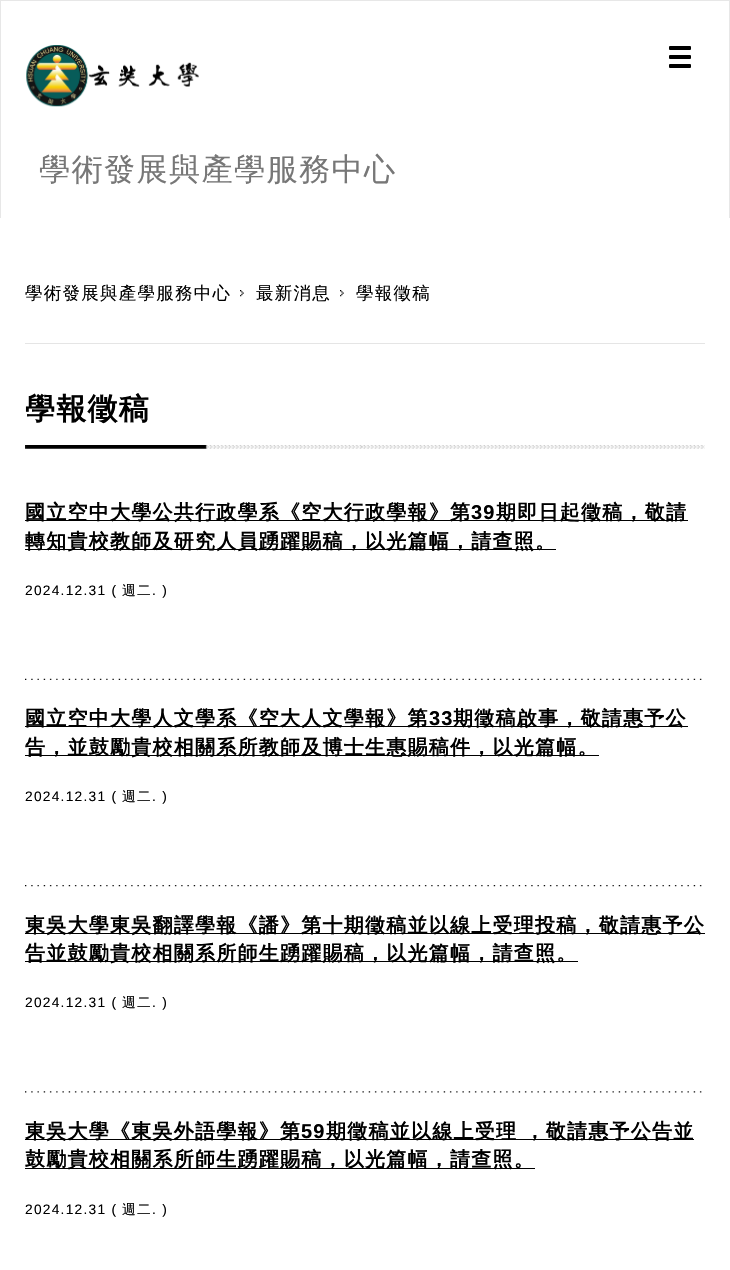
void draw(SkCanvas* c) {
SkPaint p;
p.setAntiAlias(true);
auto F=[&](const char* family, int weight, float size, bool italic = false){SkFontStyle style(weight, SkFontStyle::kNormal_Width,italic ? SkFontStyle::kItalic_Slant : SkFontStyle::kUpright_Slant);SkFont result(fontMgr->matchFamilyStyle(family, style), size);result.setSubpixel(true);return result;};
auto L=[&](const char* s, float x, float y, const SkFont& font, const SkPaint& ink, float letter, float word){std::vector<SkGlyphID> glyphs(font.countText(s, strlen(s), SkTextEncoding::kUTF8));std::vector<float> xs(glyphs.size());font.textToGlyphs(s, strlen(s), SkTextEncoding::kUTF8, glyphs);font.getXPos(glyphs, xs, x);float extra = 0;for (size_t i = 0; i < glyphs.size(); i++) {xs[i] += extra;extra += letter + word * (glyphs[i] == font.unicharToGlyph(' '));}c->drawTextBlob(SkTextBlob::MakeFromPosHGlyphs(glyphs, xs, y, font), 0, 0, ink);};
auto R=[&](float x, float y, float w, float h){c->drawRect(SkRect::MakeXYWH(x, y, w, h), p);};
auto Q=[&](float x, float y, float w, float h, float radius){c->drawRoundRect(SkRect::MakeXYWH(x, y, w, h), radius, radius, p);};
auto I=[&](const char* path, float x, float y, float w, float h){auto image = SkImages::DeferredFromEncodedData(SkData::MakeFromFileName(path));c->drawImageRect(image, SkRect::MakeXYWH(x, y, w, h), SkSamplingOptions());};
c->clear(0xffffffff);
p.setColor(0xffe7e7e7);
R(0,0,730,1);
R(729,0,1,218);
R(0,0,1,218);
I("1.png",26,45,173,62);
p.setColor(0xff000000);
Q(669,46,22,4,1);
Q(669,55,22,4,1);
Q(669,64,22,4,1);
auto f1 = F("WenQuanYi Zen Hei",500,31.25);
p.setColor(0xff777777);
L("學術發展與產學服務中心",39,180,f1,p,1.25,0);
p.setColor(0xffe5e5e5);
R(25,343,680,1);
auto f2 = F("WenQuanYi Zen Hei",500,17.5);
p.setColor(0xff000000);
L("學術發展與產學服務中心",25,299,f2,p,1.25,0);
I("2.png",240,290,4,7);
L("最新消息",256,299,f2,p,1.25,0);
I("2.png",340,290,4,7);
L("學報徵稿",356,299,f2,p,1.25,0);
I("3.png",25,445,680,4);
auto f3 = F("WenQuanYi Zen Hei",700,30);
L("學報徵稿",25,419,f3,p,1.25,0);
I("4.png",25,678,677,2);
R(25,520,663,1);
auto f4 = F("WenQuanYi Zen Hei",700,20);
L("國立空中大學公共行政學系《空大行政學報》第",25,519,f4,p,1.25,0);
auto f5 = F("Liberation Sans",700,20);
L("39",471,519,f5,p,1.25,0);
L("期即日起徵稿，敬請",496,519,f4,p,1.25,0);
R(25,549,531,1);
L("轉知貴校教師及研究人員踴躍賜稿，以光篇幅，請查照。",25,548,f4,p,1.25,0);
auto f6 = F("Liberation Sans",400,13.75);
L("2024.12.31 (",25,595,f6,p,1.25,0);
auto f7 = F("WenQuanYi Zen Hei",500,13.75);
L("週二",122,595,f7,p,1.25,0);
L(". )",152,595,f6,p,1.25,0);
I("5.png",25,885,677,2);
R(25,726,663,1);
L("國立空中大學人文學系《空大人文學報》第",25,725,f4,p,1.25,0);
L("33",429,725,f5,p,1.25,0);
L("期徵稿啟事，敬請惠予公",453,725,f4,p,1.25,0);
R(25,755,574,1);
L("告，並鼓勵貴校相關系所教師及博士生惠賜稿件，以光篇幅。",25,754,f4,p,1.25,0);
L("2024.12.31 (",25,801,f6,p,1.25,0);
L("週二",122,801,f7,p,1.25,0);
L(". )",152,801,f6,p,1.25,0);
I("6.png",25,1091,677,2);
R(25,933,680,1);
L("東吳大學東吳翻譯學報《譒》第十期徵稿並以線上受理投稿，敬請惠予公",25,932,f4,p,1.25,0);
R(25,961,553,1);
L("告並鼓勵貴校相關系所師生踴躍賜稿，以光篇幅，請查照。",25,960,f4,p,1.25,0);
L("2024.12.31 (",25,1007,f6,p,1.25,0);
L("週二",122,1007,f7,p,1.25,0);
L(". )",152,1007,f6,p,1.25,0);
R(25,1139,669,1);
L("東吳大學《東吳外語學報》第",25,1138,f4,p,1.25,0);
L("59",301,1138,f5,p,1.25,0);
L("期徵稿並以線上受理 ，敬請惠予公告並",326,1138,f4,p,1.25,0);
R(25,1168,510,1);
L("鼓勵貴校相關系所師生踴躍賜稿，以光篇幅，請查照。",25,1166,f4,p,1.25,0);
L("2024.12.31 (",25,1214,f6,p,1.25,0);
L("週二",122,1214,f7,p,1.25,0);
L(". )",152,1214,f6,p,1.25,0);
}
